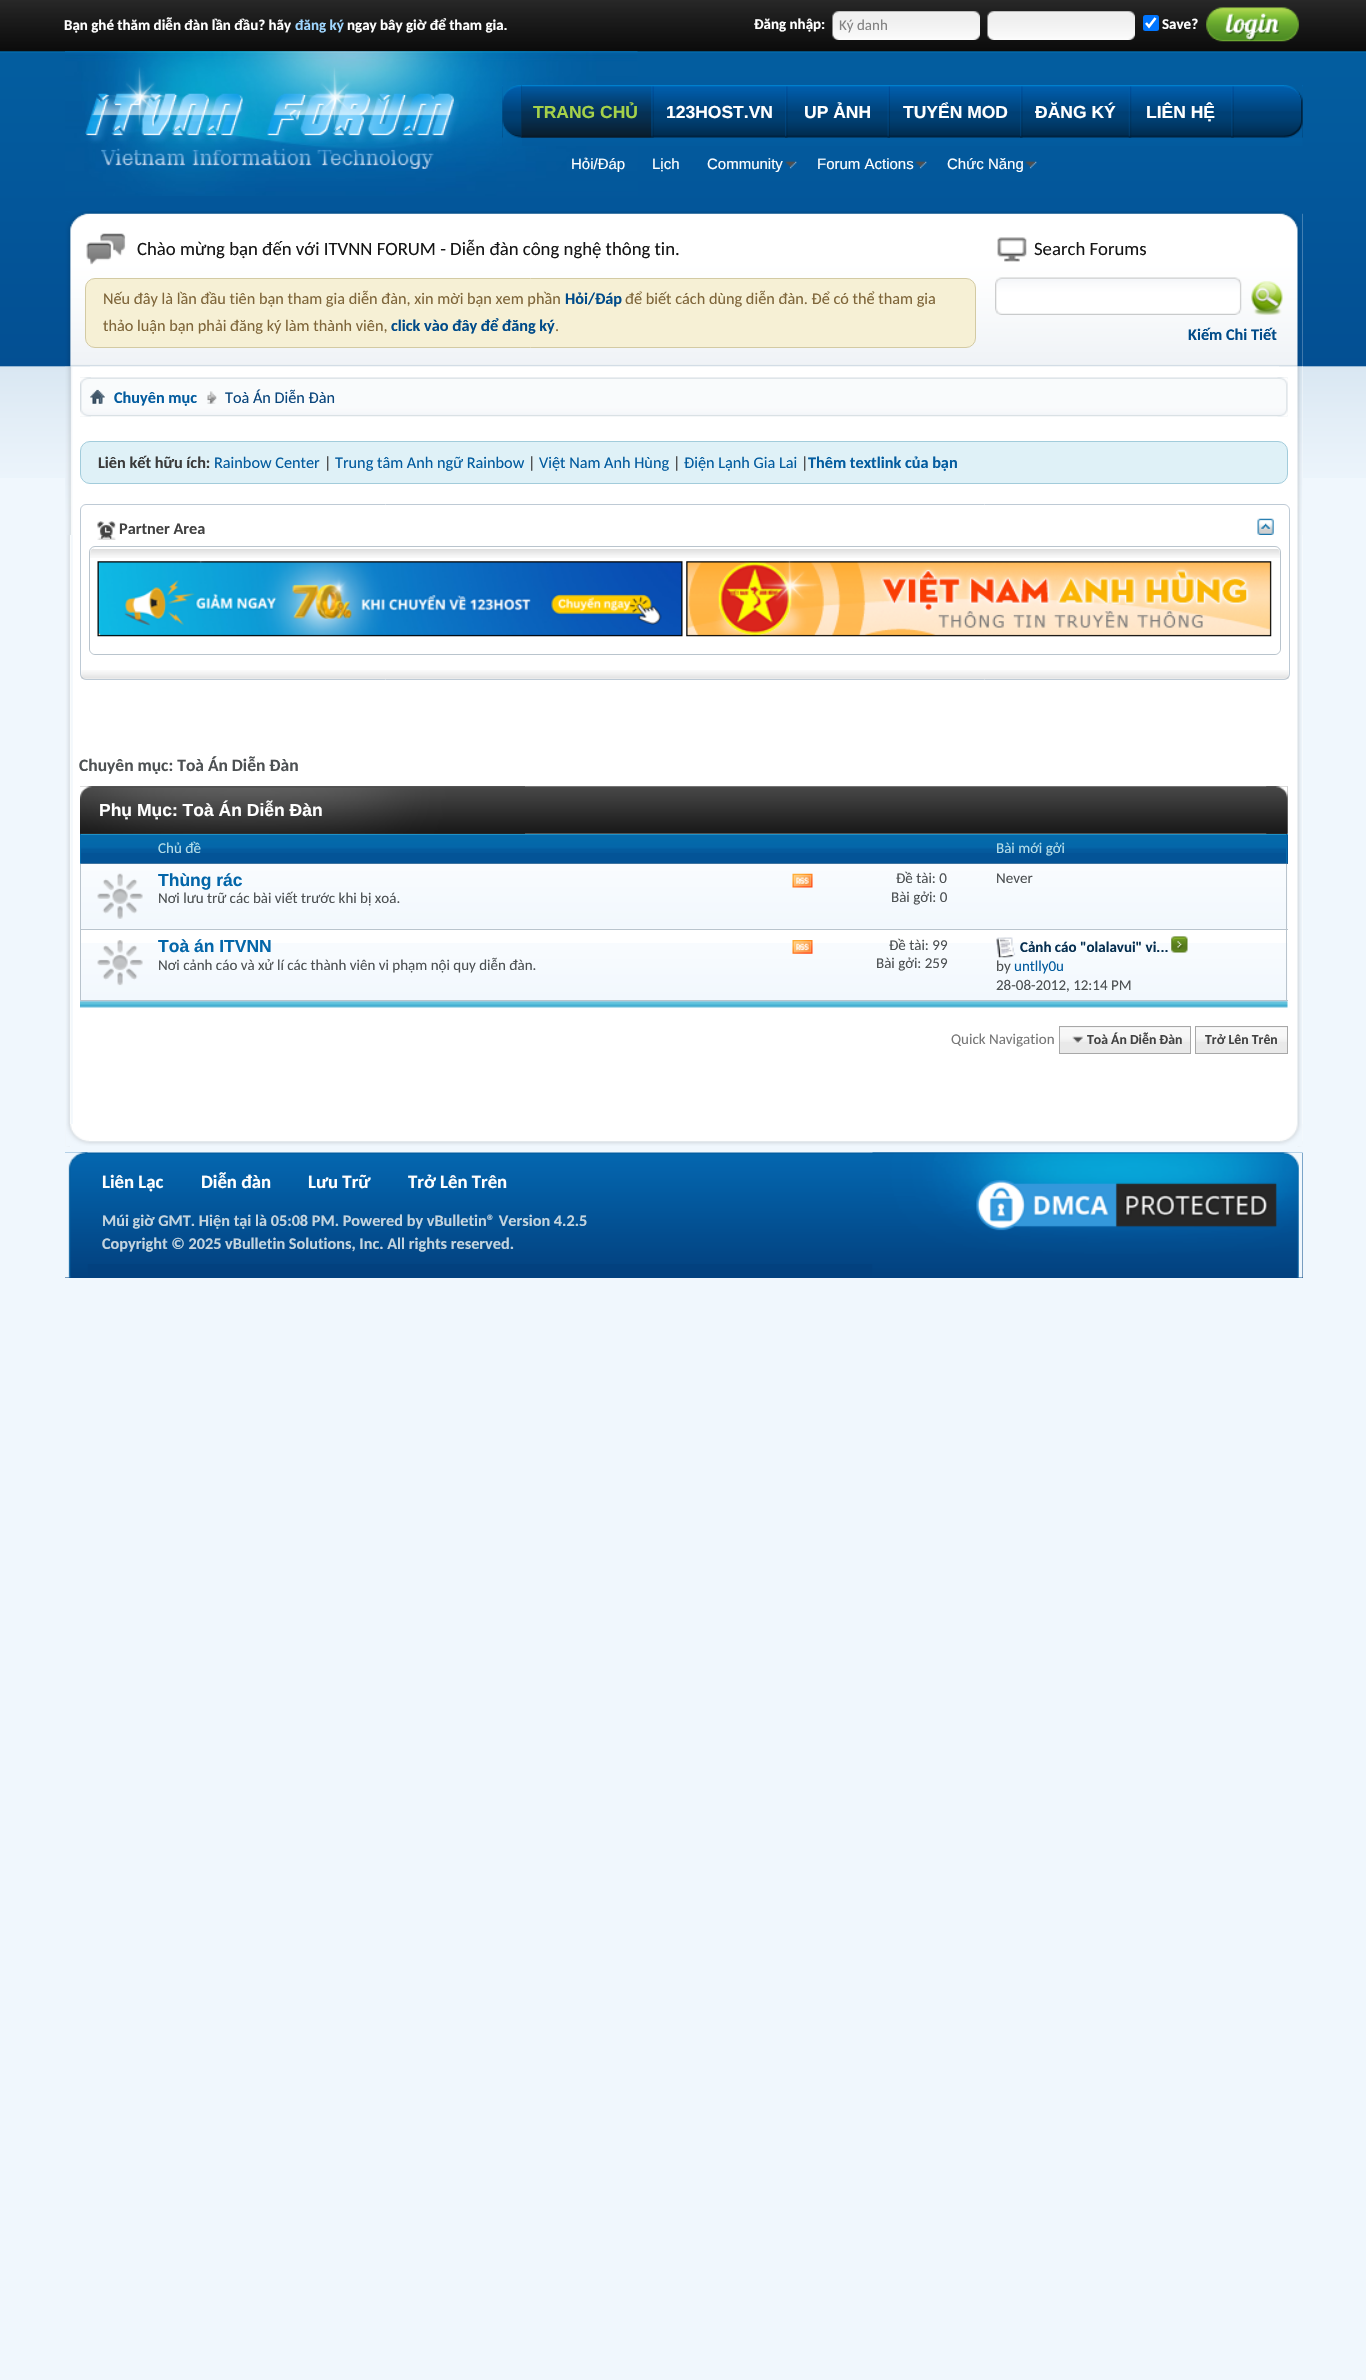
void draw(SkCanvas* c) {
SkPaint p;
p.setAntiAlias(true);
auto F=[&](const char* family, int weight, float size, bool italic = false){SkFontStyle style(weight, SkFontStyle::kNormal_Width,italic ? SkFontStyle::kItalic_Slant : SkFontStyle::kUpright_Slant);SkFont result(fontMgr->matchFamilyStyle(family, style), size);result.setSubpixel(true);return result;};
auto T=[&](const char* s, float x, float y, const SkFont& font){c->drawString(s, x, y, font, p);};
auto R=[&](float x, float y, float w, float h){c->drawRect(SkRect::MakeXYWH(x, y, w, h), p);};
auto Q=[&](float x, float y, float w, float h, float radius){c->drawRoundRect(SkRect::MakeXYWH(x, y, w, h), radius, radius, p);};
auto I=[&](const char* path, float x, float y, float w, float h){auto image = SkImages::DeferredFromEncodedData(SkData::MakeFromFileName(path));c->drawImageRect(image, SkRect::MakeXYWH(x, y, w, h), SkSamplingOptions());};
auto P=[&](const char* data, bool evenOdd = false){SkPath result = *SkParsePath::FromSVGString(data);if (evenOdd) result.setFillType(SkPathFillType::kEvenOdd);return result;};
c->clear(0xfff0f7fd);
I("1.png",0,0,1366,478);
auto f1 = F("Carlito",700,15);
p.setColor(0xffffffff);
T("Bạn ghé thăm diễn đàn lần đầu? hãy",64,30,f1);
p.setColor(0xff9fd6ff);
T("đăng ký",295,30,f1);
p.setColor(0xffffffff);
T("ngay bây giờ để tham gia.",347,30,f1);
T("Đăng nhập:",754,29,f1);
I("2.png",832,11,148,29);
auto f2 = F("Carlito",400,15);
p.setColor(0xff828282);
T("Ký danh",839,30,f2);
I("3.png",987,11,148,29);
p.setColor(0xff0075ff);
Q(1143,15,16,16,2.5);
p.setStroke(true);
p.setStrokeWidth(2.6);
p.setColor(0xffffffff);
c->drawPath(P("M1146 23l3 3.5l6.5-8.5"),p);
p.setStroke(false);
T("Save?",1162,29,f1);
I("4.png",1206,7,93,35);
I("5.png",65,51,573,145);
I("6.png",85,67,374,102);
I("7.png",502,85,801,61);
I("8.png",502,85,20,61);
I("9.png",1284,85,19,53);
I("10.png",651,86,3,52);
p.setColor(0xff043f71);
R(521,85,130,53);
I("11.png",521,85,131,53);
auto f3 = F("Liberation Sans",700,17.5);
p.setColor(0xffa5d14a);
T("TRANG CHỦ",533,118,f3);
I("12.png",785,86,3,52);
p.setColor(0xffffffff);
T("123HOST.VN",666,118,f3);
I("13.png",887,86,3,52);
T("UP ẢNH",804,118,f3);
I("12.png",1020,86,3,52);
T("TUYỂN MOD",903,118,f3);
I("14.png",1128,86,4,52);
T("ĐĂNG KÝ",1035,118,f3);
I("10.png",1231,86,3,52);
T("LIÊN HỆ",1146,118,f3);
auto f4 = F("Liberation Sans",400,15);
T("Hỏi/Ðáp",571,169,f4);
T("Lịch",652,169,f4);
T("Community",707,169,f4);
I("15.png",785,160,12,9);
T("Forum Actions",817,169,f4);
I("16.png",915,160,12,9);
T("Chức Năng",947,169,f4);
I("16.png",1025,160,12,9);
R(65,366,1238,780);
I("25.png",65,366,8,781);
I("24.png",88,1141,1215,5);
I("26.png",1296,366,7,781);
I("27.png",65,366,8,169);
I("28.png",1297,366,6,169);
I("17.png",65,211,1238,156);
I("18.png",65,211,25,156);
I("19.png",1279,211,24,156);
I("20.png",86,233,40,32);
auto f5 = F("Carlito",400,18.75);
p.setColor(0xff161616);
T("Chào mừng bạn đến với ITVNN FORUM - Diễn đàn công nghệ thông tin.",137,255,f5);
p.setColor(0xfff6f0d5);
c->drawRoundRect(SkRect::MakeXYWH(85.5,278.5,890,69),9.5,9.5,p);
p.setStroke(true);
p.setStrokeWidth(1);
p.setColor(0xffd3caa3);
c->drawRoundRect(SkRect::MakeXYWH(85.5,278.5,890,69),9.5,9.5,p);
auto f6 = F("Carlito",400,16.25);
p.setStroke(false);
p.setColor(0xff7f663a);
T("Nếu đây là lần đầu tiên bạn tham gia diễn đàn, xin mời bạn xem phần",103,304,f6);
auto f7 = F("Carlito",700,16.25);
p.setColor(0xff004b89);
T("Hỏi/Ðáp",565,304,f7);
p.setColor(0xff7f663a);
T("để biết cách dùng diễn đàn. Để có thể tham gia",625,304,f6);
T("thảo luận bạn phải đăng ký làm thành viên,",103,331,f6);
p.setColor(0xff004b89);
T("click vào đây để đăng ký",391,331,f7);
p.setColor(0xff7f663a);
T(".",555,331,f6);
I("21.png",997,237,30,25);
p.setColor(0xff161616);
T("Search Forums",1034,255,f5);
I("22.png",995,277,247,38);
I("23.png",1251,281,32,34);
p.setColor(0xff004b89);
T("Kiếm Chi Tiết",1188,340,f7);
I("29.png",66,1124,23,22);
I("30.png",1280,1124,23,22);
I("31.png",80,377,1208,40);
I("32.png",80,377,11,40);
I("33.png",1277,377,11,40);
I("34.png",90,389,15,15);
I("35.png",207,391,10,13);
p.setColor(0xff035c9f);
T("Chuyên mục",114,403,f7);
p.setColor(0xff0a467c);
T("Toà Án Diễn Đàn",225,403,f6);
p.setColor(0xffdff1f7);
c->drawRoundRect(SkRect::MakeXYWH(80.5,441.5,1207,42),9.5,9.5,p);
p.setStroke(true);
p.setColor(0xffa2ccdb);
c->drawRoundRect(SkRect::MakeXYWH(80.5,441.5,1207,42),9.5,9.5,p);
p.setStroke(false);
p.setColor(0xff3b3b3b);
T("Liên kết hữu ích:",98,468,f7);
p.setColor(0xff035c9f);
T("Rainbow Center",214,468,f6);
p.setColor(0xff3b3b3b);
T("|",324,468,f6);
p.setColor(0xff035c9f);
T("Trung tâm Anh ngữ Rainbow",335,468,f6);
p.setColor(0xff3b3b3b);
T("|",528,468,f6);
p.setColor(0xff035c9f);
T("Việt Nam Anh Hùng",539,468,f6);
p.setColor(0xff3b3b3b);
T("|",673,468,f6);
p.setColor(0xff035c9f);
T("Điện Lạnh Gia Lai",684,468,f6);
p.setColor(0xff3b3b3b);
T("|",801,468,f6);
p.setColor(0xff035c9f);
T("Thêm textlink của bạn",808,468,f7);
p.setStroke(true);
p.setColor(0xffbecad5);
c->drawRoundRect(SkRect::MakeXYWH(80.5,504.5,1209,175),5.5,5.5,p);
I("36.png",97,521,19,19);
p.setStroke(false);
p.setColor(0xff424242);
T("Partner Area",119,534,f7);
I("37.png",1257,518,17,17);
p.setStroke(true);
p.setColor(0xffb9c4cd);
c->drawRoundRect(SkRect::MakeXYWH(89.5,546.5,1191,108),5.5,5.5,p);
p.setStroke(false);
p.setColor(0xffffffff);
Q(90,548,1190,106,6);
I("38.png",90,548,1190,10);
R(94,548,1184,1);
I("39.png",97,561,586,76);
I("40.png",686,561,586,76);
I("41.png",81,670,1208,9);
auto f8 = F("Carlito",700,17.5);
p.setColor(0xff4d5153);
T("Chuyên mục: Toà Án Diễn Đàn",79,771,f8);
I("42.png",80,786,1208,48);
I("43.png",80,786,445,48);
I("44.png",1266,786,22,48);
p.setColor(0xffffffff);
T("Phụ Mục: Toà Án Diễn Đàn",99,816,f3);
p.setColor(0xff035497);
R(81,835,1207,28);
I("45.png",81,835,1207,18);
p.setColor(0xff1f91c5);
R(80,834,1208,1);
p.setColor(0xff0569ab);
R(1286,834,1,30);
p.setColor(0xff004680);
R(80,863,1208,1);
p.setColor(0xff0569ab);
R(80,834,1,30);
p.setColor(0xffb3dde8);
T("Chủ đề",158,853,f2);
T("Bài mới gởi",996,853,f2);
I("46.png",80,863,1208,66);
p.setColor(0xffb9c4cd);
R(1286,864,1,66);
R(80,929,1208,1);
R(80,864,1,66);
I("47.png",97,873,46,46);
p.setColor(0xff0366a9);
T("Thùng rác",158,886,f3);
p.setColor(0xff4d5153);
T("Nơi lưu trữ các bài viết trước khi bị xoá.",158,903,f2);
I("48.png",792,873,21,15);
T("Ðề tài: 0",896,883,f2);
T("Bài gởi: 0",891,902,f2);
T("Never",996,883,f2);
I("49.png",81,943,1207,57);
p.setColor(0xffb9c4cd);
R(1286,930,1,71);
R(80,1000,1208,1);
R(80,930,1,71);
I("50.png",97,940,46,46);
p.setColor(0xff0366a9);
T("Toà án ITVNN",158,952,f3);
p.setColor(0xff4d5153);
T("Nơi cảnh cáo và xử lí các thành viên vi phạm nội quy diễn đàn.",158,970,f2);
I("51.png",792,940,21,14);
T("Ðề tài: 99",889,950,f2);
T("Bài gởi: 259",876,968,f2);
I("52.png",996,937,20,21);
p.setColor(0xff062f50);
T("Cảnh cáo \"olalavui\" vi...",1020,952,f1);
I("53.png",1171,936,17,17);
p.setColor(0xff4d5153);
T("by",996,971,f2);
p.setColor(0xff035c9f);
T("untlly0u",1014,971,f2);
p.setColor(0xff4d5153);
T("28-08-2012, 12:14 PM",996,990,f2);
I("54.png",80,1001,1208,7);
p.setColor(0xffe9e9e9);
R(1060,1027,130,26);
I("55.png",1060,1027,130,15);
R(1196,1027,91,26);
I("56.png",1196,1027,91,15);
p.setColor(0xff777777);
T("Quick Navigation",951,1044,f2);
p.setStroke(true);
p.setColor(0xffa8a8a8);
c->drawRect(SkRect::MakeXYWH(1059.5,1026.5,131,27),p);
I("57.png",1072,1036,12,8);
auto f9 = F("Carlito",700,13.75);
p.setStroke(false);
p.setColor(0xff424242);
T("Toà Án Diễn Đàn",1087,1044,f9);
p.setStroke(true);
p.setColor(0xffa8a8a8);
c->drawRect(SkRect::MakeXYWH(1195.5,1026.5,92,27),p);
p.setStroke(false);
p.setColor(0xff424242);
T("Trở Lên Trên",1205,1044,f9);
p.setColor(0xff02417f);
R(65,1153,1238,125);
I("58.png",65,1152,1238,112);
I("59.png",65,1152,23,126);
I("60.png",872,1152,431,126);
auto f10 = F("Carlito",700,18.75);
p.setColor(0xffffffff);
T("Liên Lạc",102,1188,f10);
T("Diễn đàn",201,1188,f10);
T("Lưu Trữ",308,1188,f10);
T("Trở Lên Trên",408,1188,f10);
p.setColor(0xffc3d4df);
T("Múi giờ GMT. Hiện tại là 05:08 PM. Powered by vBulletin® Version 4.2.5",102,1226,f7);
T("Copyright © 2025 vBulletin Solutions, Inc. All rights reserved.",102,1249,f7);
I("61.png",976,1180,301,51);
}
